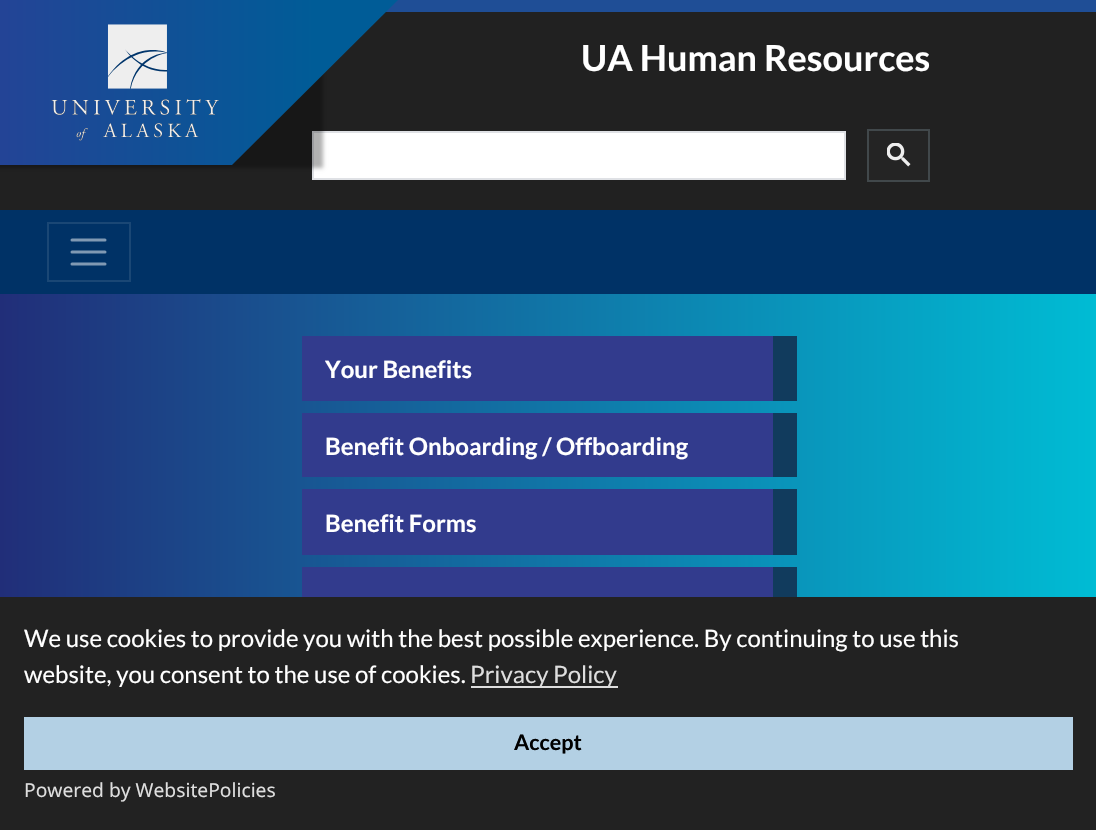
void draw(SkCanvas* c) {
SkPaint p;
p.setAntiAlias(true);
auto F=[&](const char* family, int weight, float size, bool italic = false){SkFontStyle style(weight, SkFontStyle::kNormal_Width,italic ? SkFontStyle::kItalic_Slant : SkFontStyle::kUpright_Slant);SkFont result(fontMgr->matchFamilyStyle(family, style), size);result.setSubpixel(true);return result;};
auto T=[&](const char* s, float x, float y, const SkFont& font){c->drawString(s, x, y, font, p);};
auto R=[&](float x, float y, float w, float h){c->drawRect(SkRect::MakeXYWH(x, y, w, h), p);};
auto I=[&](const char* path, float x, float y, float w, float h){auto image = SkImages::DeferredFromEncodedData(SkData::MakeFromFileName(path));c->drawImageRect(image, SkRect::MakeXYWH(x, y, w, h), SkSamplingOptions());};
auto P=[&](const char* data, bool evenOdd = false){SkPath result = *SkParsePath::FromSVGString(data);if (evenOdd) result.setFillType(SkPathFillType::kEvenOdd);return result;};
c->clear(0xff003266);
p.setColor(0xff212121);
R(0,12,1096,198);
p.setColor(0xffffffff);
c->drawRect(SkRect::MakeXYWH(313,132,532,47),p);
p.setStroke(true);
p.setStrokeWidth(2);
p.setColor(0xffdfe1e5);
c->drawRect(SkRect::MakeXYWH(313,132,532,47),p);
p.setStroke(false);
p.setColor(0x4d000000);
p.setMaskFilter(SkMaskFilter::MakeBlur(kNormal_SkBlurStyle, 2));
c->drawRect(SkRect::MakeXYWH(-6,3,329,165),p);
p.setMaskFilter(nullptr);
p.setColor(0xff1f4e96);
R(386,0,710,12);
{
const SkColor colors[] = {0xff363795,0xff005c97};
const float stops[] = {0,1};
const SkPoint ends[] = {{-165,83}, {315,83}};
p.setShader(SkGradientShader::MakeLinear(ends, colors, stops, 2, SkTileMode::kClamp));
p.setAlpha(255);
}
c->drawPath(P("M-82 0h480l-166 165h-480z"),p);
I("1.png",51,24,168,117);
auto f1 = F("Lato",700,36);
p.setShader(nullptr);
p.setColor(0xffffffff);
T("UA Human Resources",581,71,f1);
p.setColor(0xff242424);
c->drawRect(SkRect::MakeXYWH(868,130,61,51),p);
p.setStroke(true);
p.setColor(0xff41484b);
c->drawRect(SkRect::MakeXYWH(868,130,61,51),p);
I("2.png",887,143,24,24);
p.setColor(0xff1a4775);
c->drawRect(SkRect::MakeXYWH(48,223,82,58),p);
p.setStrokeWidth(3);
p.setStrokeCap(SkPaint::kRound_Cap);
p.setColor(0xff8099b3);
c->drawPath(P("M72 240h33m-33 12h33m-33 12h33"),p);
p.setStroke(false);
{
const SkColor colors[] = {0xff212e79,0xff00bcd4};
const float stops[] = {0,1};
const SkPoint ends[] = {{0,484}, {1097,484}};
p.setShader(SkGradientShader::MakeLinear(ends, colors, stops, 2, SkTileMode::kClamp));
p.setAlpha(255);
}
R(0,294,1096,303);
p.setShader(nullptr);
p.setColor(0xff323b8d);
R(302,336,471,65);
p.setColor(0xff113b5d);
R(773,336,24,65);
auto f2 = F("Lato",700,24);
p.setColor(0xffffffff);
T("Your Benefits",325,378,f2);
p.setColor(0xff323b8d);
R(302,413,471,64);
p.setColor(0xff113b5d);
R(773,413,24,64);
p.setColor(0xffffffff);
T("Benefit Onboarding / Offboarding",325,455,f2);
p.setColor(0xff323b8d);
R(302,489,471,66);
p.setColor(0xff113b5d);
R(773,489,24,66);
p.setColor(0xffffffff);
T("Benefit Forms",325,532,f2);
p.setColor(0xff323b8d);
R(302,567,471,30);
p.setColor(0xff113b5d);
R(773,567,24,30);
p.setColor(0xff222222);
R(0,597,1096,233);
auto f3 = F("Lato",400,24);
p.setColor(0xffffffff);
T("We use cookies to provide you with the best possible experience. By continuing to use this",24,647,f3);
T("website, you consent to the use of cookies.",24,683,f3);
p.setColor(0xffdedede);
R(471,686,147,2);
T("Privacy Policy",470,683,f3);
p.setColor(0xffb3d0e4);
R(24,717,1049,53);
auto f4 = F("Lato",700,21.5);
p.setColor(0xff000000);
T("Accept",514,750,f4);
auto f5 = F("Noto Sans",400,19.25);
p.setColor(0xffdedede);
T("Powered by WebsitePolicies",24,797,f5);
}
